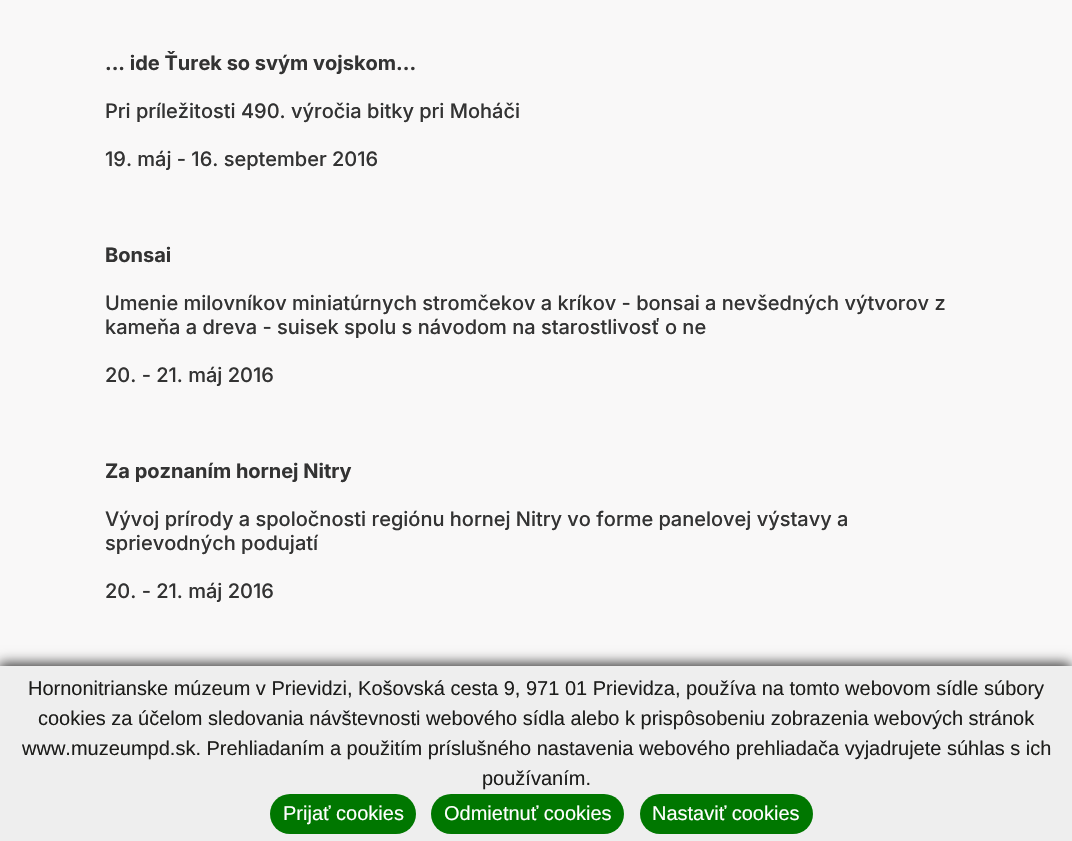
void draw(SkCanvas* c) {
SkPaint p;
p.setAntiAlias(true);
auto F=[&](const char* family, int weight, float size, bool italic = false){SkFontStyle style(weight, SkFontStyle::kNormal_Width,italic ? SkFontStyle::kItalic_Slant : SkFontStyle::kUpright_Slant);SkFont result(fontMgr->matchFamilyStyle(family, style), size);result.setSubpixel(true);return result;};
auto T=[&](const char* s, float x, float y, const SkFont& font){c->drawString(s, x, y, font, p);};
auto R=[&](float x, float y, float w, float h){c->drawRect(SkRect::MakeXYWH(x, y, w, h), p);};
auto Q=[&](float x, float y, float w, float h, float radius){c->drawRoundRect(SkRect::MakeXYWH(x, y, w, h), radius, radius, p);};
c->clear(0xfff9f8f8);
auto f1 = F("Inter",700,20);
p.setColor(0xff333333);
T("... ide Ťurek so svým vojskom...",105,70,f1);
auto f2 = F("Inter",500,20);
T("Pri príležitosti 490. výročia bitky pri Moháči",105,118,f2);
T("19. máj - 16. september 2016",105,166,f2);
T("Bonsai",105,262,f1);
T("Umenie milovníkov miniatúrnych stromčekov a kríkov - bonsai a nevšedných výtvorov z",105,310,f2);
T("kameňa a dreva - suisek spolu s návodom na starostlivosť o ne",105,334,f2);
T("20. - 21. máj 2016",105,382,f2);
T("Za poznaním hornej Nitry",105,478,f1);
T("Vývoj prírody a spoločnosti regiónu hornej Nitry vo forme panelovej výstavy a",105,526,f2);
T("sprievodných podujatí",105,550,f2);
T("20. - 21. máj 2016",105,598,f2);
p.setColor(0xbf000000);
p.setMaskFilter(SkMaskFilter::MakeBlur(kNormal_SkBlurStyle, 6));
c->drawRect(SkRect::MakeXYWH(-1,663,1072,175),p);
p.setMaskFilter(nullptr);
p.setColor(0xffeeeeee);
R(0,666,1072,175);
auto f3 = F("Liberation Sans",400,20);
p.setColor(0xff1d1d1b);
T("Hornonitrianske múzeum v Prievidzi, Košovská cesta 9, 971 01 Prievidza, používa na tomto webovom sídle súbory",28,695,f3);
T("cookies za účelom sledovania návštevnosti webového sídla alebo k prispôsobeniu zobrazenia webových stránok",38,725,f3);
T("www.muzeumpd.sk. Prehliadaním a použitím príslušného nastavenia webového prehliadača vyjadrujete súhlas s ich",22,755,f3);
T("používaním.",482,785,f3);
p.setColor(0xff007700);
Q(270,794,146,40,20);
p.setColor(0xffffffff);
T("Prijať cookies",283,820,f3);
p.setColor(0xff007700);
Q(431,794,193,40,20);
p.setColor(0xffffffff);
T("Odmietnuť cookies",444,820,f3);
p.setColor(0xff007700);
Q(640,794,173,40,20);
p.setColor(0xffffffff);
T("Nastaviť cookies",652,820,f3);
}
